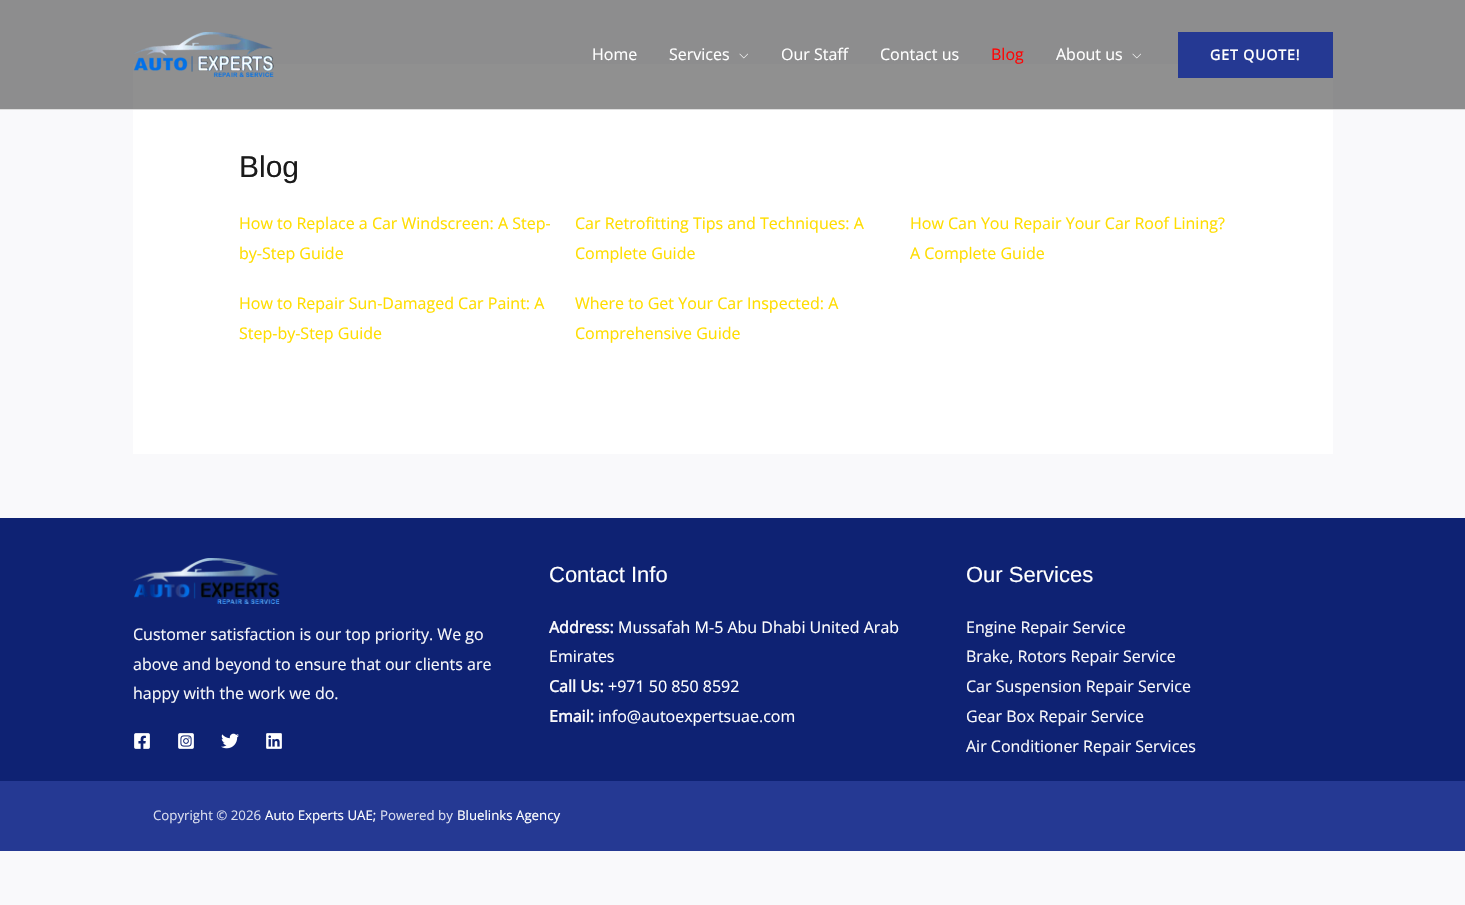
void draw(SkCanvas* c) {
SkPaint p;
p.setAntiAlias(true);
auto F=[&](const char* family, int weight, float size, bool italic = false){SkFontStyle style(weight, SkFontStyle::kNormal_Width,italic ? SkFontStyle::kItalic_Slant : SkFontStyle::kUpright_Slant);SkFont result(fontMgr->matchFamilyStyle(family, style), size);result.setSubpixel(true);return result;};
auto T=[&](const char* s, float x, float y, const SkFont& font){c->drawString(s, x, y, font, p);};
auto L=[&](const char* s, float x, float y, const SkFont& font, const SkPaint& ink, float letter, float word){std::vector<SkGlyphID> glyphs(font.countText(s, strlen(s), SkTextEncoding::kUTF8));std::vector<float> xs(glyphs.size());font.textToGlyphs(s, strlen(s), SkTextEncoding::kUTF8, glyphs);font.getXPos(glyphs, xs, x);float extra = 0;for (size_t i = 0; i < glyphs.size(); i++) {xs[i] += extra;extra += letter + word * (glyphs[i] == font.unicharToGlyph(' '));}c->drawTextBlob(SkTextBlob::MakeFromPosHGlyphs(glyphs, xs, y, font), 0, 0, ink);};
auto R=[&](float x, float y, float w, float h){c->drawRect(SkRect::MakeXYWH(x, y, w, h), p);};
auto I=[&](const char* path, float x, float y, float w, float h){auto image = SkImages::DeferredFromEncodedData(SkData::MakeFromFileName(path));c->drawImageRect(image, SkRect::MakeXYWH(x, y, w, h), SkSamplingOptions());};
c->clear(0xfff9f9fb);
p.setColor(0xff8d8d8e);
R(0,0,1465,109);
p.setColor(0xffdddddd);
R(0,109,1465,1);
p.setColor(0xff909090);
R(133,64,1200,45);
I("1.png",133,32,141,45);
auto f1 = F("Open Sans",400,16);
p.setColor(0xffffffff);
T("Home",592,60,f1);
T("Services",669,60,f1);
I("2.png",739,53,9,6);
T("Our Staff",781,60,f1);
T("Contact us",880,60,f1);
p.setColor(0xfffe0505);
T("Blog",991,60,f1);
p.setColor(0xffffffff);
T("About us",1056,60,f1);
I("2.png",1132,53,9,6);
p.setColor(0xff253993);
R(1178,32,155,46);
auto f2 = F("Open Sans",700,14);
p.setColor(0xffffffff);
L("GET QUOTE!",1210,60,f2,p,1,0);
R(133,110,1200,344);
auto f3 = F("Liberation Sans",400,30);
p.setColor(0xff1a1a1a);
T("Blog",239,177,f3);
p.setColor(0xffffdd00);
T("How to Replace a Car Windscreen: A Step-",239,229,f1);
T("by-Step Guide",239,259,f1);
T("Car Retrofitting Tips and Techniques: A",575,229,f1);
T("Complete Guide",575,259,f1);
T("How Can You Repair Your Car Roof Lining?",910,229,f1);
T("A Complete Guide",910,259,f1);
T("How to Repair Sun-Damaged Car Paint: A",239,309,f1);
T("Step-by-Step Guide",239,339,f1);
T("Where to Get Your Car Inspected: A",575,309,f1);
T("Comprehensive Guide",575,339,f1);
p.setColor(0xff253993);
R(0,781,1465,70);
p.setColor(0xff0e2273);
R(0,518,1465,263);
I("3.png",133,558,147,46);
p.setColor(0xfff9f9fb);
T("Customer satisfaction is our top priority. We go",133,640,f1);
T("above and beyond to ensure that our clients are",133,670,f1);
T("happy with the work we do.",133,699,f1);
I("4.png",134,733,16,16);
I("5.png",178,733,16,16);
I("6.png",221,733,18,16);
I("7.png",266,733,16,16);
auto f4 = F("Liberation Sans",400,22);
p.setColor(0xffffffff);
T("Contact Info",549,582,f4);
auto f5 = F("Open Sans",700,16);
p.setColor(0xfff9f9fb);
T("Address:",549,633,f5);
p.setColor(0xffffffff);
T("Mussafah M-5 Abu Dhabi United Arab",618,633,f1);
T("Emirates",549,662,f1);
p.setColor(0xfff9f9fb);
T("Call Us:",549,692,f5);
p.setColor(0xffffffff);
T("+971 50 850 8592",608,692,f1);
p.setColor(0xfff9f9fb);
T("Email:",549,722,f5);
p.setColor(0xffffffff);
T("info@autoexpertsuae.com",598,722,f1);
T("Our Services",966,582,f4);
p.setColor(0xfff9f9fb);
T("Engine Repair Service",966,633,f1);
T("Brake, Rotors Repair Service",966,662,f1);
T("Car Suspension Repair Service",966,692,f1);
T("Gear Box Repair Service",966,722,f1);
T("Air Conditioner Repair Services",966,752,f1);
auto f6 = F("Open Sans",400,13.25);
p.setColor(0xffdadeef);
T("Copyright © 2026",153,820,f6);
p.setColor(0xffffffff);
T("Auto Experts UAE;",265,820,f6);
p.setColor(0xffdadeef);
T("Powered by",380,820,f6);
p.setColor(0xffffffff);
T("Bluelinks Agency",457,820,f6);
}
